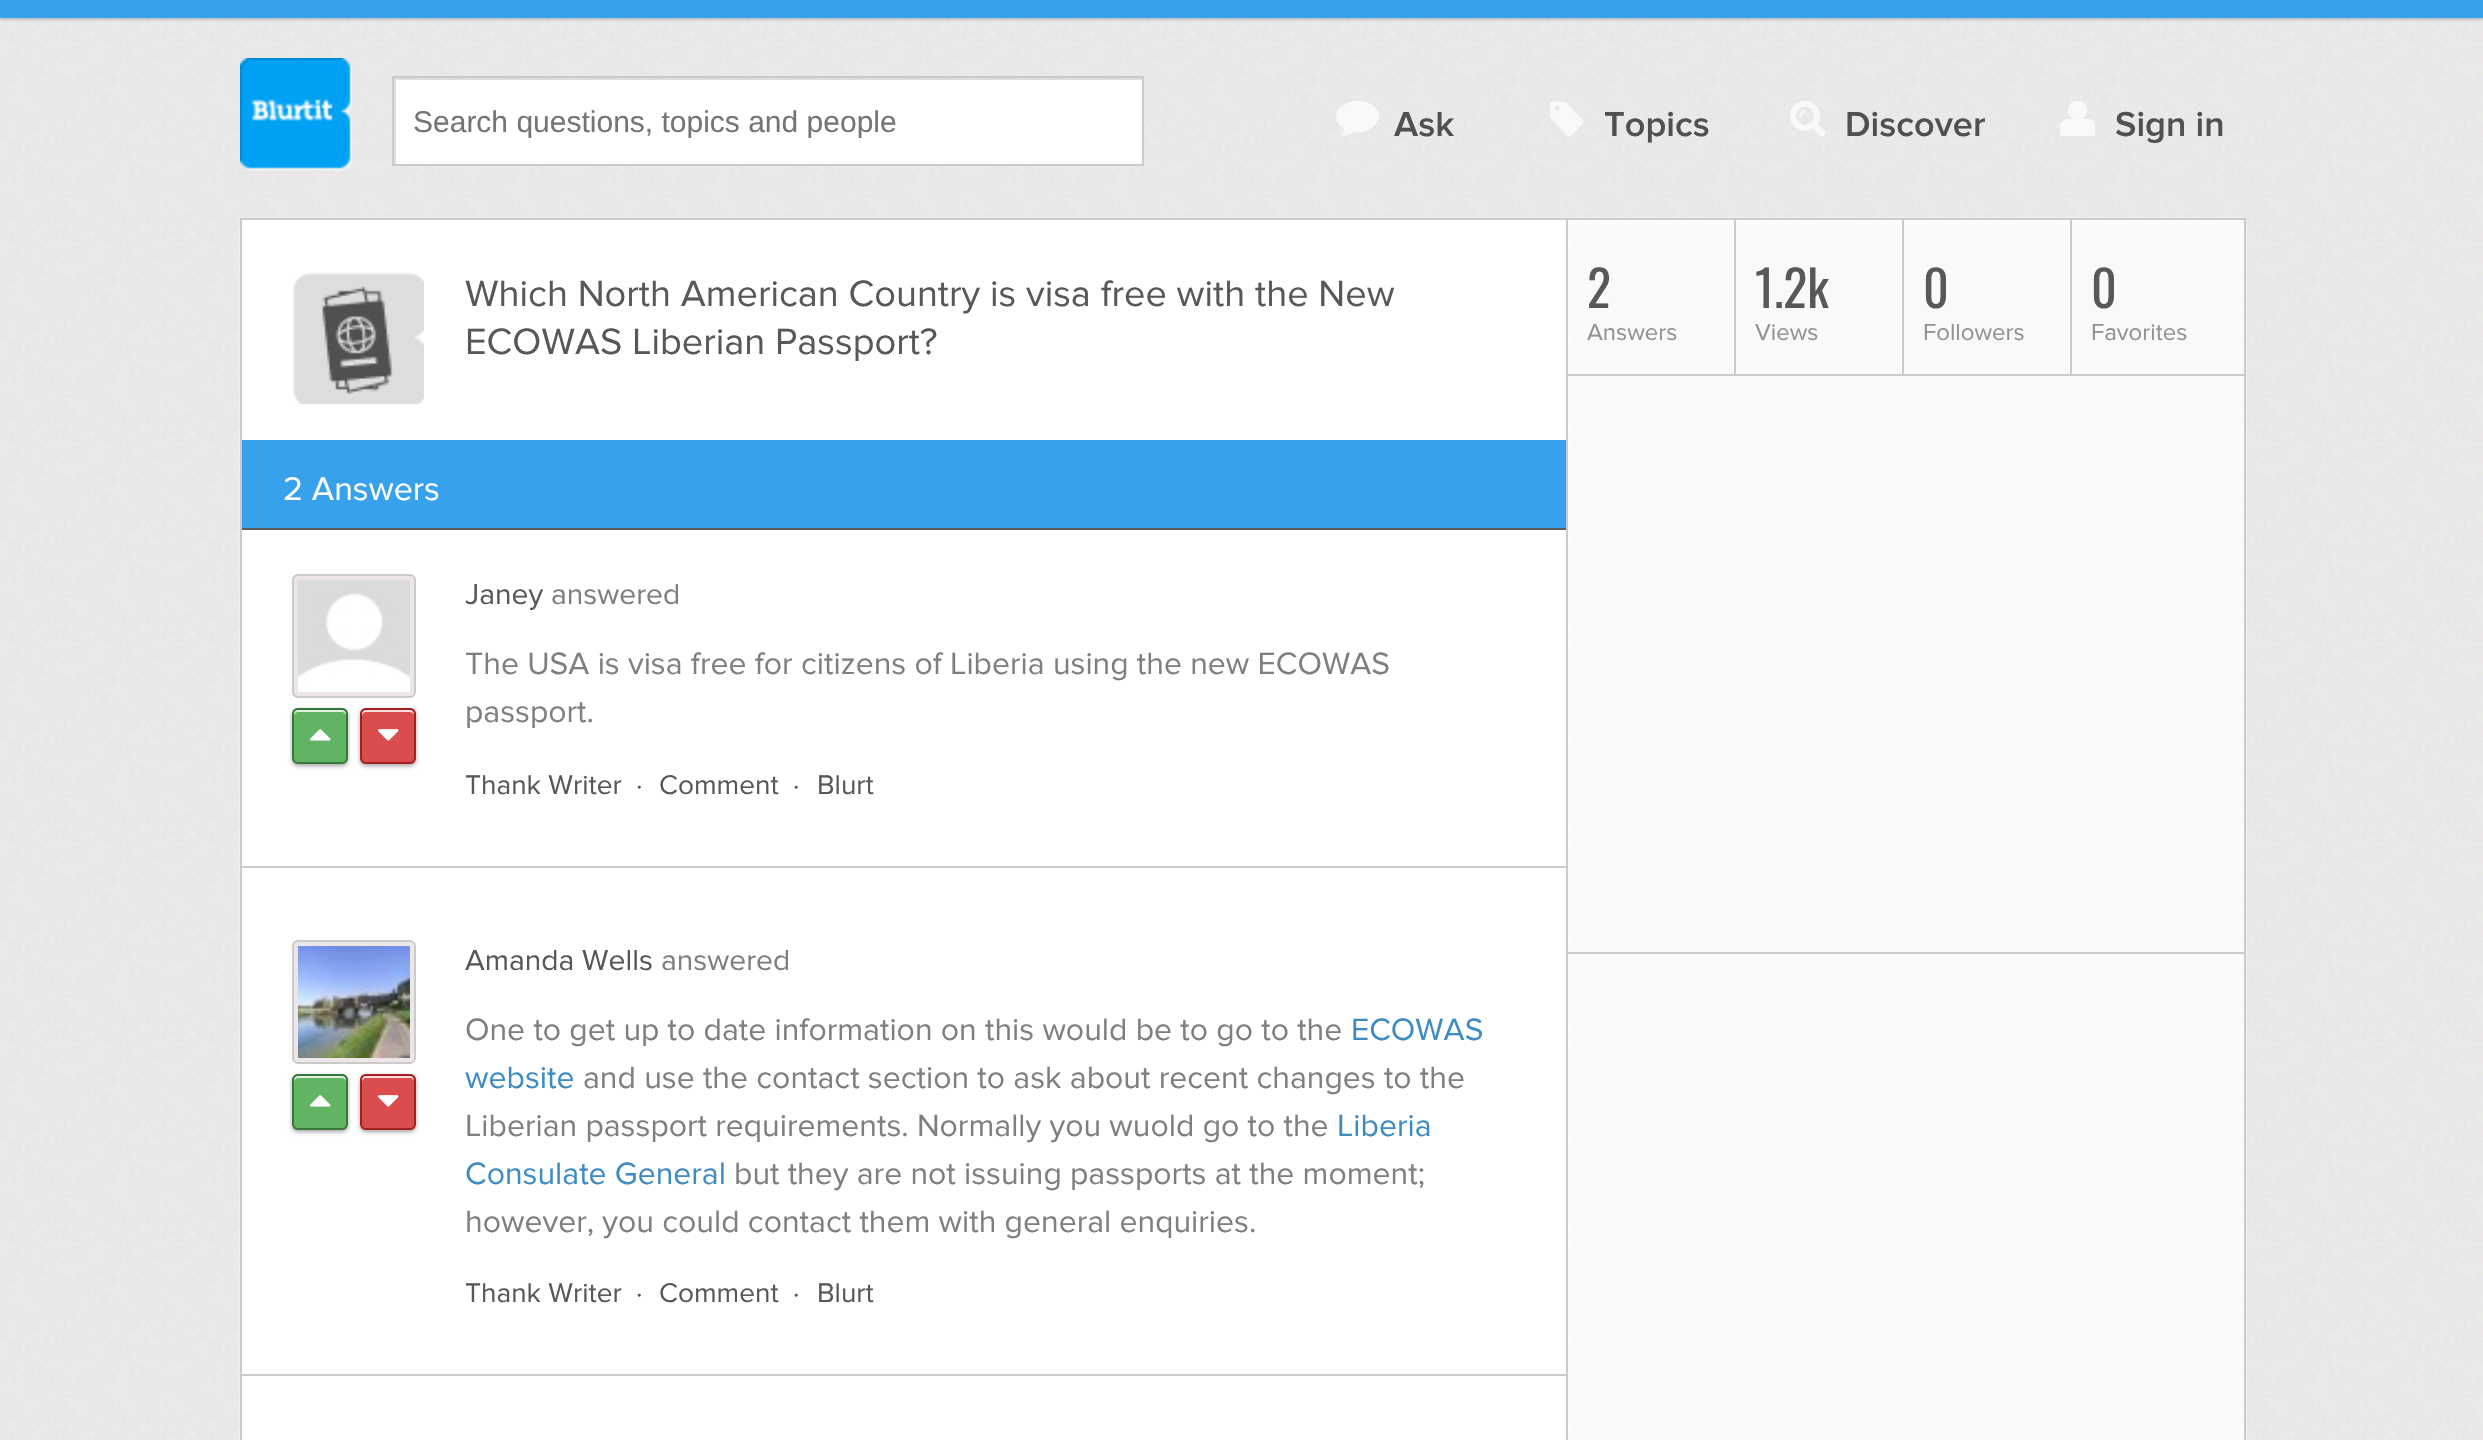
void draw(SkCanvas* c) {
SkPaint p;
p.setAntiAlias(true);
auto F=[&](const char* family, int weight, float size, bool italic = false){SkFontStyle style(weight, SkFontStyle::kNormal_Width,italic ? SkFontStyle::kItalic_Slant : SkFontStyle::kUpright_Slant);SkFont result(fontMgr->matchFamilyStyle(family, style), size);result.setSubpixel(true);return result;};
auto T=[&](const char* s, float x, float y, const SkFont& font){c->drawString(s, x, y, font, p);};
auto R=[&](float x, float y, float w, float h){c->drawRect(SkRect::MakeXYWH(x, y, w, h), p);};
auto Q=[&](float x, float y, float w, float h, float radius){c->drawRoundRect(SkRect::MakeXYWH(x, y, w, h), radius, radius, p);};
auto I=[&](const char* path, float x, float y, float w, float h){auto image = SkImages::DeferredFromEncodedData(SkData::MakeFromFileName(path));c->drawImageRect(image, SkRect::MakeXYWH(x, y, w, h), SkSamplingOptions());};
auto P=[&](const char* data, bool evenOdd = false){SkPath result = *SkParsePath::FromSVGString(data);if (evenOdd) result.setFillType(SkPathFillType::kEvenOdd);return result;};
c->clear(0xffffffff);
I("1.png",0,18,2483,1422);
p.setColor(0x2b000000);
p.setMaskFilter(SkMaskFilter::MakeBlur(kNormal_SkBlurStyle, 1));
c->drawRect(SkRect::MakeXYWH(0,2,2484,18),p);
p.setMaskFilter(nullptr);
p.setColor(0xff38a1ec);
R(0,0,2483,18);
I("2.png",240,58,112,112);
p.setColor(0xffffffff);
R(396,80,746,84);
c->save();
c->clipRect(SkRect::MakeXYWH(394,78,748,86));
p.setColor(0xffdedede);
c->drawPath(P("M196-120h1144v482h-1144zm200 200h748v86h-748z",true),p);
c->restore();
p.setStroke(true);
p.setStrokeWidth(2);
p.setColor(0xffcbcbcb);
c->drawRect(SkRect::MakeXYWH(393,77,750,88),p);
c->save();
c->clipRect(SkRect::MakeXYWH(414,104,708,34));
auto f1 = F("Liberation Sans",400,30);
p.setStroke(false);
p.setColor(0xff757575);
T("Search questions, topics and people",413,132,f1);
c->restore();
p.setColor(0xfff9f9f9);
c->drawPath(P("M1336 117c0-5 2-8 6-11c17-14 49 3 33 19c-5 6-14 8-22 7c-2 2-6 4-10 4c-5 1-1-2 0-3l1-4c-4-3-8-7-8-12z"),p);
auto f2 = F("Proxima Nova",600,36);
p.setColor(0xff505050);
T("Ask",1394,136,f2);
I("3.png",1550,101,34,36);
T("Topics",1604,136,f2);
I("4.png",1790,101,36,36);
T("Discover",1845,136,f2);
I("5.png",2060,101,35,35);
T("Sign in",2115,136,f2);
p.setColor(0xccffffff);
p.setMaskFilter(SkMaskFilter::MakeBlur(kNormal_SkBlurStyle, 1));
c->drawRect(SkRect::MakeXYWH(240,218,2006,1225),p);
p.setMaskFilter(nullptr);
p.setColor(0xfff9f9f9);
R(1570,225,670,1215);
p.setStroke(true);
p.setColor(0xffcbcbcb);
c->drawRect(SkRect::MakeXYWH(241,219,2004,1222),p);
p.setStroke(false);
p.setColor(0xffffffff);
R(242,220,1324,1220);
p.setColor(0xffcbcbcb);
R(1566,220,2,1220);
I("6.png",292,272,132,132);
auto f3 = F("Proxima Nova",400,38);
p.setColor(0xff585858);
T("Which North American Country is visa free with the New",465,306,f3);
T("ECOWAS Liberian Passport?",465,354,f3);
p.setColor(0xff5c5c5c);
R(242,528,1324,2);
p.setColor(0xff38a1ec);
R(242,440,1324,88);
auto f4 = F("Proxima Nova",400,34);
p.setColor(0xffffffff);
T("2 Answers",283,500,f4);
p.setColor(0xffcbcbcb);
R(242,866,1324,2);
p.setColor(0xffece6e7);
c->drawRoundRect(SkRect::MakeXYWH(293,575,122,122),5,5,p);
p.setStroke(true);
p.setColor(0xffcbcbcb);
c->drawRoundRect(SkRect::MakeXYWH(293,575,122,122),5,5,p);
I("7.png",298,580,112,112);
p.setStroke(false);
p.setColor(0x59000000);
p.setMaskFilter(SkMaskFilter::MakeBlur(kNormal_SkBlurStyle, 2));
c->drawRoundRect(SkRect::MakeXYWH(292,710,56,56),6,6,p);
p.setMaskFilter(nullptr);
p.setColor(0xff61b463);
Q(292,708,56,56,6);
p.setColor(0xffdff0e0);
c->drawPath(P("M298 712h44c2 0 4 2 4 4c0-8-4-6-11-6h-30c-7 0-11-2-11 6c0-2 2-4 4-4z"),p);
p.setStroke(true);
p.setColor(0xff38773a);
c->drawRoundRect(SkRect::MakeXYWH(293,709,54,54),5,5,p);
I("8.png",310,729,21,12);
p.setStroke(false);
p.setColor(0x59000000);
p.setMaskFilter(SkMaskFilter::MakeBlur(kNormal_SkBlurStyle, 2));
c->drawRoundRect(SkRect::MakeXYWH(360,710,56,56),6,6,p);
p.setMaskFilter(nullptr);
p.setColor(0xffdb4d4d);
Q(360,708,56,56,6);
p.setColor(0xfff8dbdb);
c->drawPath(P("M366 712h44c2 0 4 2 4 4c0-8-4-6-11-6h-30c-7 0-11-2-11 6c0-2 2-4 4-4z"),p);
p.setStroke(true);
p.setColor(0xffa12121);
c->drawRoundRect(SkRect::MakeXYWH(361,709,54,54),5,5,p);
I("9.png",378,729,21,12);
auto f5 = F("Proxima Nova",400,30);
p.setStroke(false);
p.setColor(0xff585858);
T("Janey",465,604,f5);
p.setColor(0xff7f7f7f);
T("answered",551,604,f5);
auto f6 = F("Proxima Nova",400,32);
T("The USA is visa free for citizens of Liberia using the new ECOWAS",465,674,f6);
T("passport.",465,722,f6);
auto f7 = F("Proxima Nova",400,28);
p.setColor(0xff585858);
T("Thank Writer",465,794,f7);
T("·",636,794,f7);
T("Comment",659,794,f7);
T("·",793,794,f7);
T("Blurt",817,794,f7);
p.setColor(0xffcbcbcb);
R(242,1374,1324,2);
p.setColor(0xffece6e7);
c->drawRoundRect(SkRect::MakeXYWH(293,941,122,122),5,5,p);
p.setStroke(true);
p.setColor(0xffcbcbcb);
c->drawRoundRect(SkRect::MakeXYWH(293,941,122,122),5,5,p);
I("10.png",298,946,112,112);
p.setStroke(false);
p.setColor(0x59000000);
p.setMaskFilter(SkMaskFilter::MakeBlur(kNormal_SkBlurStyle, 2));
c->drawRoundRect(SkRect::MakeXYWH(292,1076,56,56),6,6,p);
p.setMaskFilter(nullptr);
p.setColor(0xff61b463);
Q(292,1074,56,56,6);
p.setColor(0xffdff0e0);
c->drawPath(P("M298 1078h44c2 0 4 2 4 4c0-8-4-6-11-6h-30c-7 0-11-2-11 6c0-2 2-4 4-4z"),p);
p.setStroke(true);
p.setColor(0xff38773a);
c->drawRoundRect(SkRect::MakeXYWH(293,1075,54,54),5,5,p);
I("8.png",310,1095,21,12);
p.setStroke(false);
p.setColor(0x59000000);
p.setMaskFilter(SkMaskFilter::MakeBlur(kNormal_SkBlurStyle, 2));
c->drawRoundRect(SkRect::MakeXYWH(360,1076,56,56),6,6,p);
p.setMaskFilter(nullptr);
p.setColor(0xffdb4d4d);
Q(360,1074,56,56,6);
p.setColor(0xfff8dbdb);
c->drawPath(P("M366 1078h44c2 0 4 2 4 4c0-8-4-6-11-6h-30c-7 0-11-2-11 6c0-2 2-4 4-4z"),p);
p.setStroke(true);
p.setColor(0xffa12121);
c->drawRoundRect(SkRect::MakeXYWH(361,1075,54,54),5,5,p);
I("9.png",378,1095,21,12);
p.setStroke(false);
p.setColor(0xff585858);
T("Amanda Wells",465,970,f5);
p.setColor(0xff7f7f7f);
T("answered",661,970,f5);
T("One to get up to date information on this would be to go to the",465,1040,f6);
p.setColor(0xff3f8cc3);
T("ECOWAS",1351,1040,f6);
T("website",465,1088,f6);
p.setColor(0xff7f7f7f);
T("and use the contact section to ask about recent changes to the",583,1088,f6);
T("Liberian passport requirements. Normally you wuold go to the",465,1136,f6);
p.setColor(0xff3f8cc3);
T("Liberia",1337,1136,f6);
T("Consulate General",465,1184,f6);
p.setColor(0xff7f7f7f);
T("but they are not issuing passports at the moment;",734,1184,f6);
T("however, you could contact them with general enquiries.",465,1232,f6);
p.setColor(0xff585858);
T("Thank Writer",465,1302,f7);
T("·",636,1302,f7);
T("Comment",659,1302,f7);
T("·",793,1302,f7);
T("Blurt",817,1302,f7);
p.setColor(0xffcbcbcb);
R(1568,374,676,2);
R(1734,220,2,154);
auto f8 = F("Oswald",400,50);
p.setColor(0xff585858);
T("2",1587,308,f8);
auto f9 = F("Proxima Nova",400,24);
p.setColor(0xff919191);
T("Answers",1587,340,f9);
p.setColor(0xffcbcbcb);
R(1902,220,2,154);
p.setColor(0xff585858);
T("1.2k",1755,308,f8);
p.setColor(0xff919191);
T("Views",1755,340,f9);
p.setColor(0xffcbcbcb);
R(2070,220,2,154);
p.setColor(0xff585858);
T("0",1923,308,f8);
p.setColor(0xff919191);
T("Followers",1923,340,f9);
p.setColor(0xff585858);
T("0",2091,308,f8);
p.setColor(0xff919191);
T("Favorites",2091,340,f9);
p.setColor(0xffcbcbcb);
R(1568,952,676,2);
}
